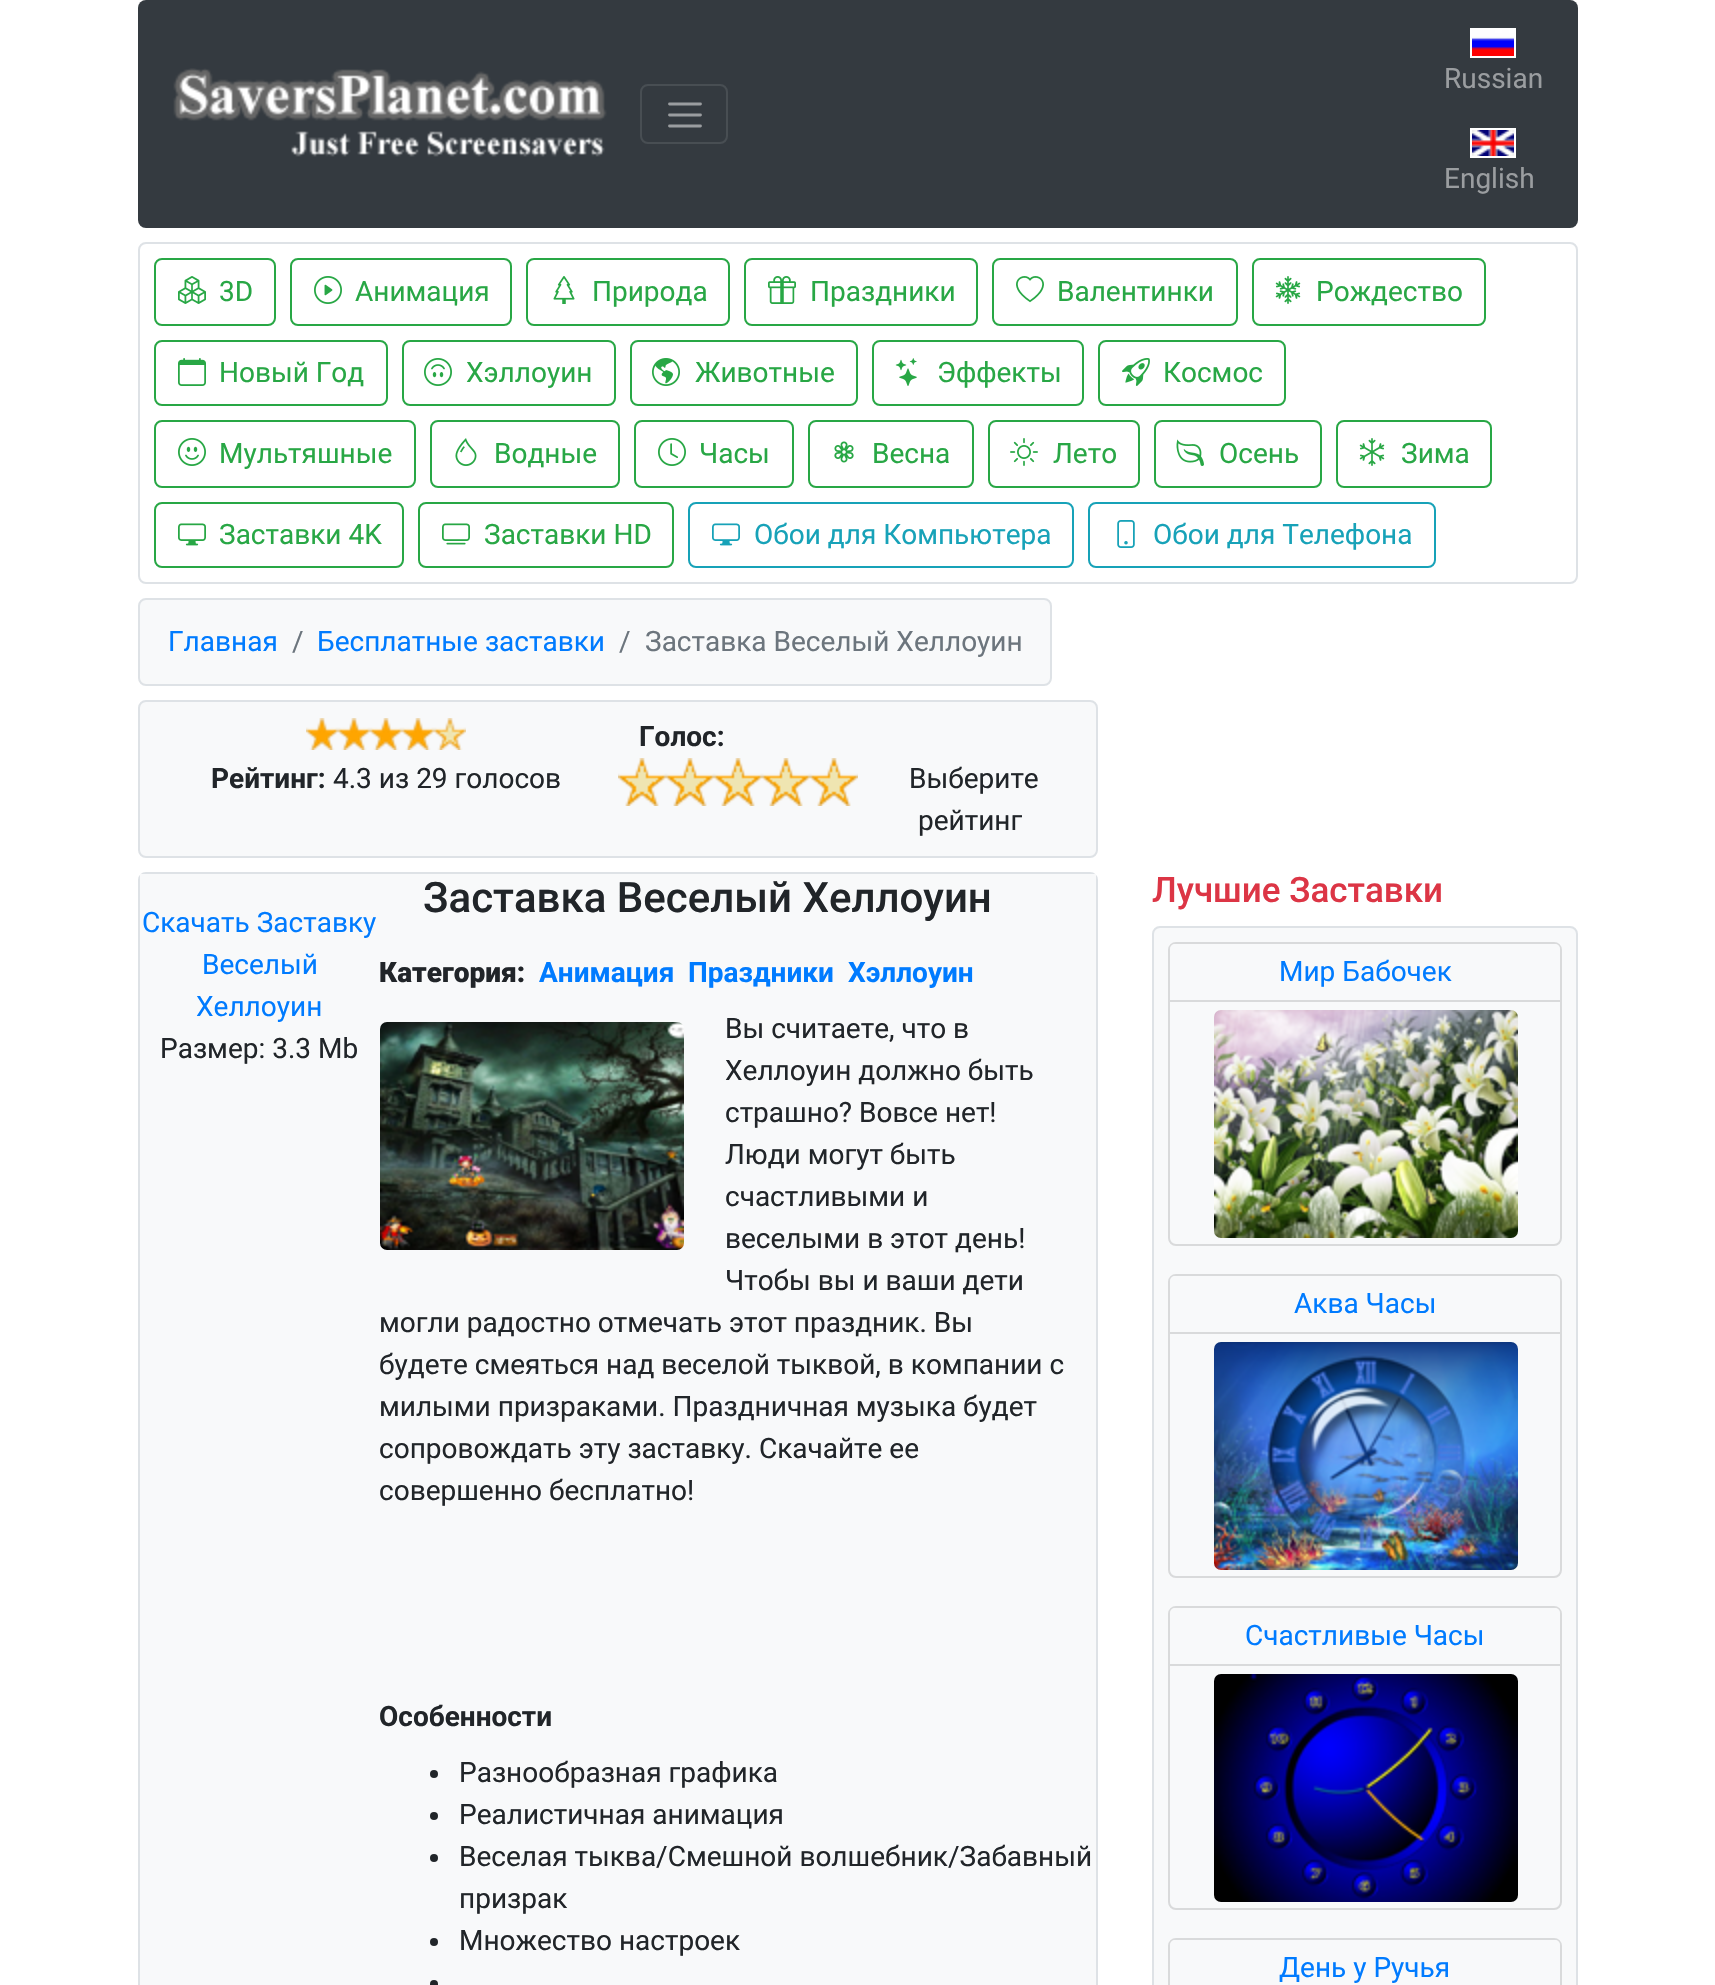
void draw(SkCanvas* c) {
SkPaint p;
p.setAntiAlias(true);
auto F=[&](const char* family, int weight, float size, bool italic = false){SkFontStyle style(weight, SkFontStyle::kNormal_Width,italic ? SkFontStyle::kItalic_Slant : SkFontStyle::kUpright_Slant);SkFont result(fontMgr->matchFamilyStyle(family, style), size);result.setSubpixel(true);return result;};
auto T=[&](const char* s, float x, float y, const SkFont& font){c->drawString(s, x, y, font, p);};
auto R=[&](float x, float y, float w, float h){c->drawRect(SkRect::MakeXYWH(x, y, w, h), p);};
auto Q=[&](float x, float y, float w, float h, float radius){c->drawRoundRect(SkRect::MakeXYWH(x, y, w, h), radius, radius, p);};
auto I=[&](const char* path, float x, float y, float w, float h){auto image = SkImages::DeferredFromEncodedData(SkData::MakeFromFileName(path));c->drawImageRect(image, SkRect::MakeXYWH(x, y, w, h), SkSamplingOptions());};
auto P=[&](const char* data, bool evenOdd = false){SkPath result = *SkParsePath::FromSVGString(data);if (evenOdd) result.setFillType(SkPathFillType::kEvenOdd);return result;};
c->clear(0xffffffff);
p.setColor(0xff343a40);
Q(138,0,1440,228,8);
I("1.png",173,68,434,89);
p.setStroke(true);
p.setStrokeWidth(2);
p.setColor(0xff484e53);
c->drawRoundRect(SkRect::MakeXYWH(641,85,86,58),7,7,p);
p.setStrokeWidth(2.8);
p.setStrokeCap(SkPaint::kRound_Cap);
p.setColor(0xff9a9da0);
c->drawPath(P("M669.5 104h31m-31 11h31m-31 11h31"),p);
p.setStrokeWidth(2);
p.setStrokeCap(SkPaint::kButt_Cap);
p.setColor(0xffffffff);
c->drawRect(SkRect::MakeXYWH(1471,29,44,28),p);
I("2.png",1472,30,42,26);
auto f1 = F("Roboto",400,28);
p.setStroke(false);
p.setColor(0xff9a9da0);
T("Russian",1444,88,f1);
p.setStroke(true);
p.setColor(0xffffffff);
c->drawRect(SkRect::MakeXYWH(1471,129,44,28),p);
I("3.png",1472,130,42,26);
p.setStroke(false);
p.setColor(0xff9a9da0);
T("English",1444,188,f1);
p.setStroke(true);
p.setColor(0xffdee2e6);
c->drawRoundRect(SkRect::MakeXYWH(139,243,1438,340),7,7,p);
p.setColor(0xff28a745);
c->drawRoundRect(SkRect::MakeXYWH(155,259,120,66),7,7,p);
I("4.png",178,276,28,28);
p.setStroke(false);
T("3D",219,301,f1);
p.setStroke(true);
c->drawRoundRect(SkRect::MakeXYWH(291,259,220,66),7,7,p);
I("5.png",314,276,28,28);
p.setStroke(false);
T("Анимация",355,301,f1);
p.setStroke(true);
c->drawRoundRect(SkRect::MakeXYWH(527,259,202,66),7,7,p);
I("6.png",553,276,22,28);
p.setStroke(false);
T("Природа",592,301,f1);
p.setStroke(true);
c->drawRoundRect(SkRect::MakeXYWH(745,259,232,66),7,7,p);
I("7.png",768,276,28,28);
p.setStroke(false);
T("Праздники",810,301,f1);
p.setStroke(true);
c->drawRoundRect(SkRect::MakeXYWH(993,259,244,66),7,7,p);
I("8.png",1016,276,28,27);
p.setStroke(false);
T("Валентинки",1057,301,f1);
p.setStroke(true);
c->drawRoundRect(SkRect::MakeXYWH(1253,259,232,66),7,7,p);
I("9.png",1275,276,26,28);
p.setStroke(false);
T("Рождество",1316,301,f1);
p.setStroke(true);
c->drawRoundRect(SkRect::MakeXYWH(155,341,232,64),7,7,p);
I("10.png",178,358,28,28);
p.setStroke(false);
T("Новый Год",219,382,f1);
p.setStroke(true);
c->drawRoundRect(SkRect::MakeXYWH(403,341,212,64),7,7,p);
I("11.png",424,358,28,28);
p.setStroke(false);
T("Хэллоуин",466,382,f1);
p.setStroke(true);
c->drawRoundRect(SkRect::MakeXYWH(631,341,226,64),7,7,p);
I("12.png",652,358,28,28);
p.setStroke(false);
T("Животные",695,382,f1);
p.setStroke(true);
c->drawRoundRect(SkRect::MakeXYWH(873,341,210,64),7,7,p);
I("13.png",895,358,22,28);
p.setStroke(false);
T("Эффекты",937,382,f1);
p.setStroke(true);
c->drawRoundRect(SkRect::MakeXYWH(1099,341,186,64),7,7,p);
I("14.png",1122,358,28,28);
p.setStroke(false);
T("Космос",1163,382,f1);
p.setStroke(true);
c->drawRoundRect(SkRect::MakeXYWH(155,421,260,66),7,7,p);
I("15.png",178,438,28,28);
p.setStroke(false);
T("Мультяшные",219,463,f1);
p.setStroke(true);
c->drawRoundRect(SkRect::MakeXYWH(431,421,188,66),7,7,p);
I("16.png",455,438,22,28);
p.setStroke(false);
T("Водные",494,463,f1);
p.setStroke(true);
c->drawRoundRect(SkRect::MakeXYWH(635,421,158,66),7,7,p);
I("17.png",658,438,28,28);
p.setStroke(false);
T("Часы",699,463,f1);
p.setStroke(true);
c->drawRoundRect(SkRect::MakeXYWH(809,421,164,66),7,7,p);
I("18.png",834,441,20,22);
p.setStroke(false);
T("Весна",872,463,f1);
p.setStroke(true);
c->drawRoundRect(SkRect::MakeXYWH(989,421,150,66),7,7,p);
I("19.png",1010,438,28,28);
p.setStroke(false);
T("Лето",1053,463,f1);
p.setStroke(true);
c->drawRoundRect(SkRect::MakeXYWH(1155,421,166,66),7,7,p);
I("20.png",1176,439,28,27);
p.setStroke(false);
T("Осень",1219,463,f1);
p.setStroke(true);
c->drawRoundRect(SkRect::MakeXYWH(1337,421,154,66),7,7,p);
I("21.png",1359,438,26,28);
p.setStroke(false);
T("Зима",1401,463,f1);
p.setStroke(true);
c->drawRoundRect(SkRect::MakeXYWH(155,503,248,64),7,7,p);
I("22.png",178,523,28,23);
p.setStroke(false);
T("Заставки 4K",219,544,f1);
p.setStroke(true);
c->drawRoundRect(SkRect::MakeXYWH(419,503,254,64),7,7,p);
I("23.png",442,523,28,22);
p.setStroke(false);
T("Заставки HD",484,544,f1);
p.setStroke(true);
p.setColor(0xff17a2b8);
c->drawRoundRect(SkRect::MakeXYWH(689,503,384,64),7,7,p);
I("24.png",712,523,28,23);
p.setStroke(false);
T("Обои для Компьютера",754,544,f1);
p.setStroke(true);
c->drawRoundRect(SkRect::MakeXYWH(1089,503,346,64),7,7,p);
I("25.png",1117,520,18,28);
p.setStroke(false);
T("Обои для Телефона",1153,544,f1);
p.setColor(0xfff8f9fa);
c->drawRoundRect(SkRect::MakeXYWH(139,599,912,86),7,7,p);
p.setStroke(true);
p.setColor(0xffdee2e6);
c->drawRoundRect(SkRect::MakeXYWH(139,599,912,86),7,7,p);
p.setStroke(false);
p.setColor(0xff007bff);
T("Главная",168,651,f1);
p.setColor(0xff6c757d);
T("/",292,651,f1);
p.setColor(0xff007bff);
T("Бесплатные заставки",317,651,f1);
p.setColor(0xff6c757d);
T("/",619,651,f1);
T("Заставка Веселый Хеллоуин",645,651,f1);
p.setColor(0xfff8f9fa);
c->drawRoundRect(SkRect::MakeXYWH(139,701,958,156),7,7,p);
p.setStroke(true);
p.setColor(0xffdee2e6);
c->drawRoundRect(SkRect::MakeXYWH(139,701,958,156),7,7,p);
I("26.png",306,718,32,32);
I("26.png",338,718,32,32);
I("26.png",370,718,32,32);
I("26.png",402,718,32,32);
I("27.png",434,718,32,32);
auto f2 = F("Roboto",700,28);
p.setStroke(false);
p.setColor(0xff212529);
T("Голос:",639,746,f2);
T("Рейтинг:",211,788,f2);
T("4.3 из 29 голосов",333,788,f1);
I("28.png",618,758,48,48);
I("28.png",666,758,48,48);
I("28.png",714,758,48,48);
I("28.png",762,758,48,48);
I("28.png",810,758,48,48);
T("Выберите",909,788,f1);
T("рейтинг",918,830,f1);
p.setStroke(true);
p.setColor(0xffdee2e6);
c->drawRoundRect(SkRect::MakeXYWH(139,873,958,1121),7,7,p);
p.setStroke(false);
p.setColor(0xfff8f9fa);
R(140,874,956,1111);
p.setColor(0xff007bff);
T("Скачать Заставку",142,932,f1);
T("Веселый",202,974,f1);
T("Хеллоуин",196,1016,f1);
p.setColor(0xff212529);
T("Размер: 3.3 Mb",160,1058,f1);
auto f3 = F("Roboto",500,42);
T("Заставка Веселый Хеллоуин",423,912,f3);
auto f4 = F("Roboto",900,28);
T("Категория:",379,982,f4);
p.setColor(0xff007bff);
T("Анимация",539,982,f2);
T("Праздники",688,982,f2);
T("Хэллоуин",848,982,f2);
p.setColor(0xff212529);
T("Вы считаете, что в",725,1038,f1);
T("Хеллоуин должно быть",725,1080,f1);
T("страшно? Вовсе нет!",725,1122,f1);
T("Люди могут быть",725,1164,f1);
T("счастливыми и",725,1206,f1);
T("веселыми в этот день!",725,1248,f1);
T("Чтобы вы и ваши дети",725,1290,f1);
T("могли радостно отмечать этот праздник. Вы",379,1332,f1);
T("будете смеяться над веселой тыквой, в компании с",379,1374,f1);
T("милыми призраками. Праздничная музыка будет",379,1416,f1);
T("сопровождать эту заставку. Скачайте ее",379,1458,f1);
T("совершенно бесплатно!",379,1500,f1);
I("29.png",380,1022,304,228);
T("Особенности",379,1726,f2);
c->drawCircle(434,1774,4,p);
T("Разнообразная графика",459,1782,f1);
c->drawCircle(434,1816,4,p);
T("Реалистичная анимация",459,1824,f1);
c->drawCircle(434,1858,4,p);
T("Веселая тыква/Смешной волшебник/Забавный",459,1866,f1);
T("призрак",459,1908,f1);
c->drawCircle(434,1942,4,p);
T("Множество настроек",459,1950,f1);
c->drawCircle(434,1984,4,p);
auto f5 = F("Roboto",500,35);
p.setColor(0xffdc3545);
T("Лучшие Заставки",1152,902,f5);
p.setColor(0xfff8f9fa);
c->drawRoundRect(SkRect::MakeXYWH(1153,927,424,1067),7,7,p);
p.setStroke(true);
p.setColor(0xffdee2e6);
c->drawRoundRect(SkRect::MakeXYWH(1153,927,424,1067),7,7,p);
p.setColor(0xffd9dadb);
c->drawRoundRect(SkRect::MakeXYWH(1169,943,392,302),7,7,p);
p.setStroke(false);
p.setColor(0xfff8f9fa);
c->drawPath(P("M1175 944h380c3 0 5 2 5 5v53h-390v-53c0-3 2-5 5-5z"),p);
p.setColor(0xffd9dadb);
R(1170,1000,390,2);
p.setColor(0xff007bff);
T("Мир Бабочек",1279,981,f1);
I("30.png",1214,1010,304,228);
p.setStroke(true);
p.setColor(0xffd9dadb);
c->drawRoundRect(SkRect::MakeXYWH(1169,1275,392,302),7,7,p);
p.setStroke(false);
p.setColor(0xfff8f9fa);
c->drawPath(P("M1175 1276h380c3 0 5 2 5 5v53h-390v-53c0-3 2-5 5-5z"),p);
p.setColor(0xffd9dadb);
R(1170,1332,390,2);
p.setColor(0xff007bff);
T("Аква Часы",1294,1313,f1);
I("31.png",1214,1342,304,228);
p.setStroke(true);
p.setColor(0xffd9dadb);
c->drawRoundRect(SkRect::MakeXYWH(1169,1607,392,302),7,7,p);
p.setStroke(false);
p.setColor(0xfff8f9fa);
c->drawPath(P("M1175 1608h380c3 0 5 2 5 5v53h-390v-53c0-3 2-5 5-5z"),p);
p.setColor(0xffd9dadb);
R(1170,1664,390,2);
p.setColor(0xff007bff);
T("Счастливые Часы",1245,1645,f1);
I("32.png",1214,1674,304,228);
p.setStroke(true);
p.setColor(0xffd9dadb);
c->drawRoundRect(SkRect::MakeXYWH(1169,1939,392,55),7,7,p);
p.setStroke(false);
p.setColor(0xfff8f9fa);
c->drawPath(P("M1175 1940h380c3 0 5 2 5 5v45h-390v-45c0-3 2-5 5-5z"),p);
p.setColor(0xff007bff);
T("День у Ручья",1279,1977,f1);
}
